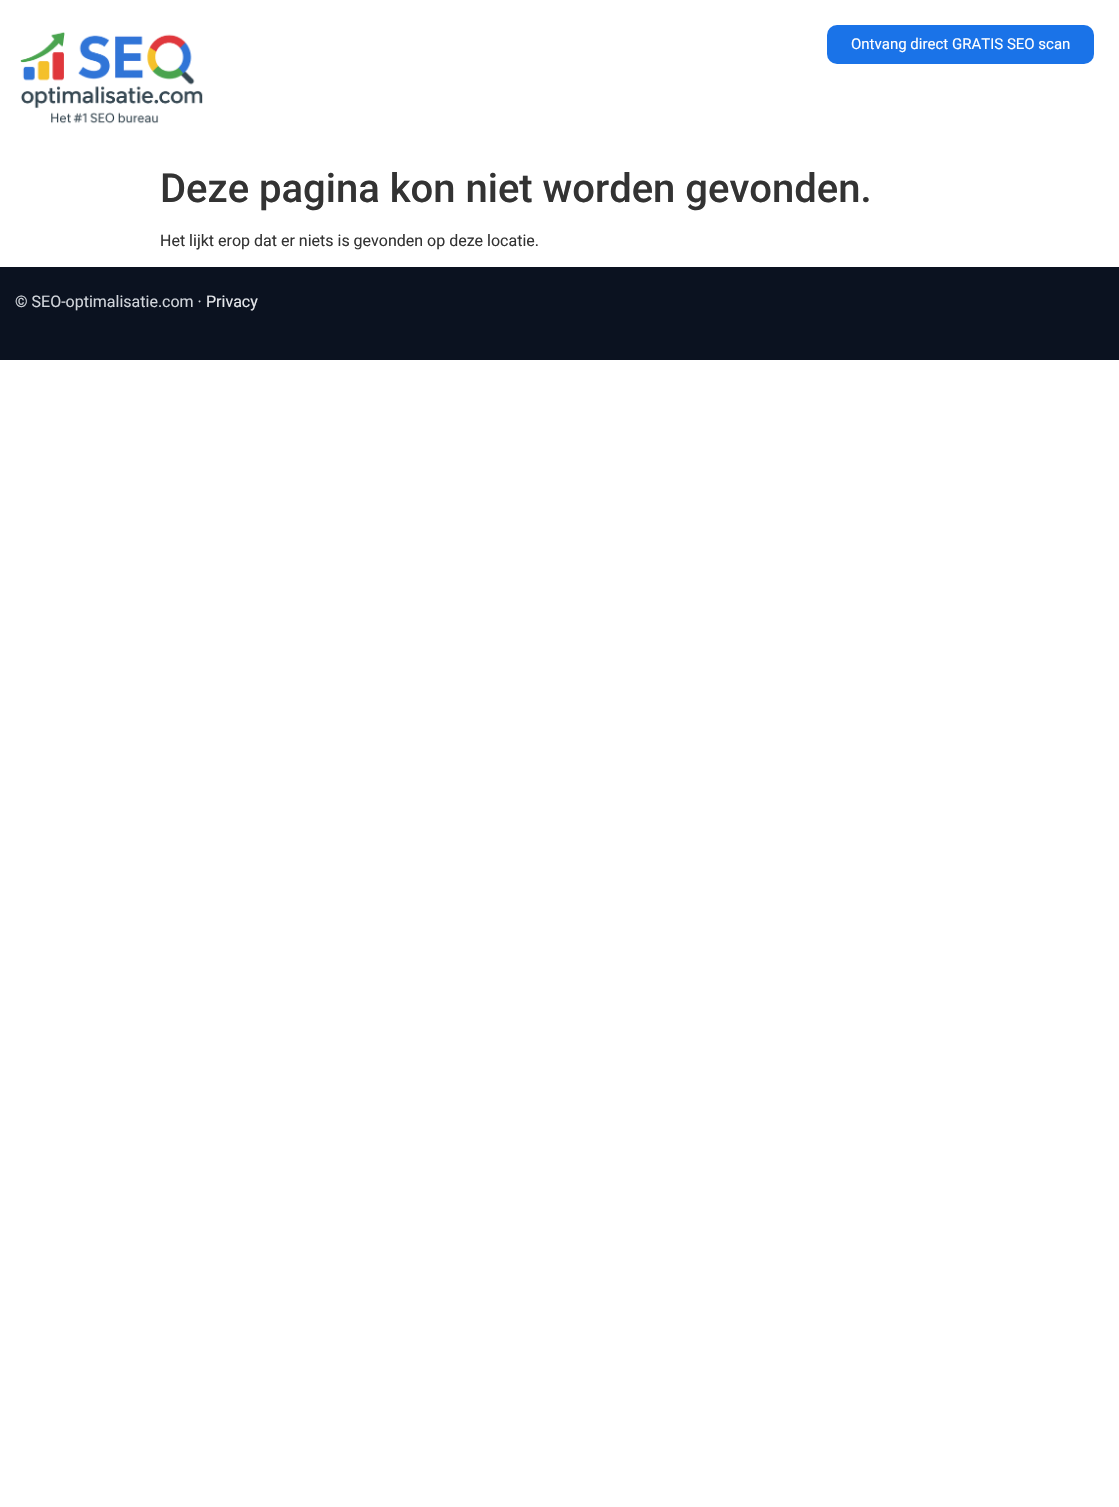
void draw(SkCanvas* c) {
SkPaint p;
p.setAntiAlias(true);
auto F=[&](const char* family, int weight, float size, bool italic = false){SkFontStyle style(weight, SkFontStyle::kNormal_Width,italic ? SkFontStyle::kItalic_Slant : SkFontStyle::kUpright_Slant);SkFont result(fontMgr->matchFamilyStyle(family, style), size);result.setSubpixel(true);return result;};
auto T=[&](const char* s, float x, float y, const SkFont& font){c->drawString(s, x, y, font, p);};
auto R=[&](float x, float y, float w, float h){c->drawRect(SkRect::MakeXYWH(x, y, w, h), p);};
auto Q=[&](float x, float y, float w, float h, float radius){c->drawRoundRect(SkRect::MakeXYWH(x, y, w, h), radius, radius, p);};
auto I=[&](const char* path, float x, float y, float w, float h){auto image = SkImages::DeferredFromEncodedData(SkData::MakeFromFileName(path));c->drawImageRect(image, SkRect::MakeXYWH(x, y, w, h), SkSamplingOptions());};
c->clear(0xffffffff);
I("1.png",20,32,183,92);
p.setColor(0xff1a73e8);
Q(827,25,267,39,10);
auto f1 = F("Roboto",400,15);
p.setColor(0xffffffff);
T("Ontvang direct GRATIS SEO scan",851,49,f1);
auto f2 = F("Roboto",500,40);
p.setColor(0xff333333);
T("Deze pagina kon niet worden gevonden.",160,202,f2);
auto f3 = F("Roboto",400,16);
T("Het lijkt erop dat er niets is gevonden op deze locatie.",160,246,f3);
p.setColor(0xff0b1220);
R(0,267,1119,93);
p.setColor(0xffd1d5db);
T("© SEO-optimalisatie.com ·",15,307,f3);
p.setColor(0xffe5e7eb);
T("Privacy",206,307,f3);
}
